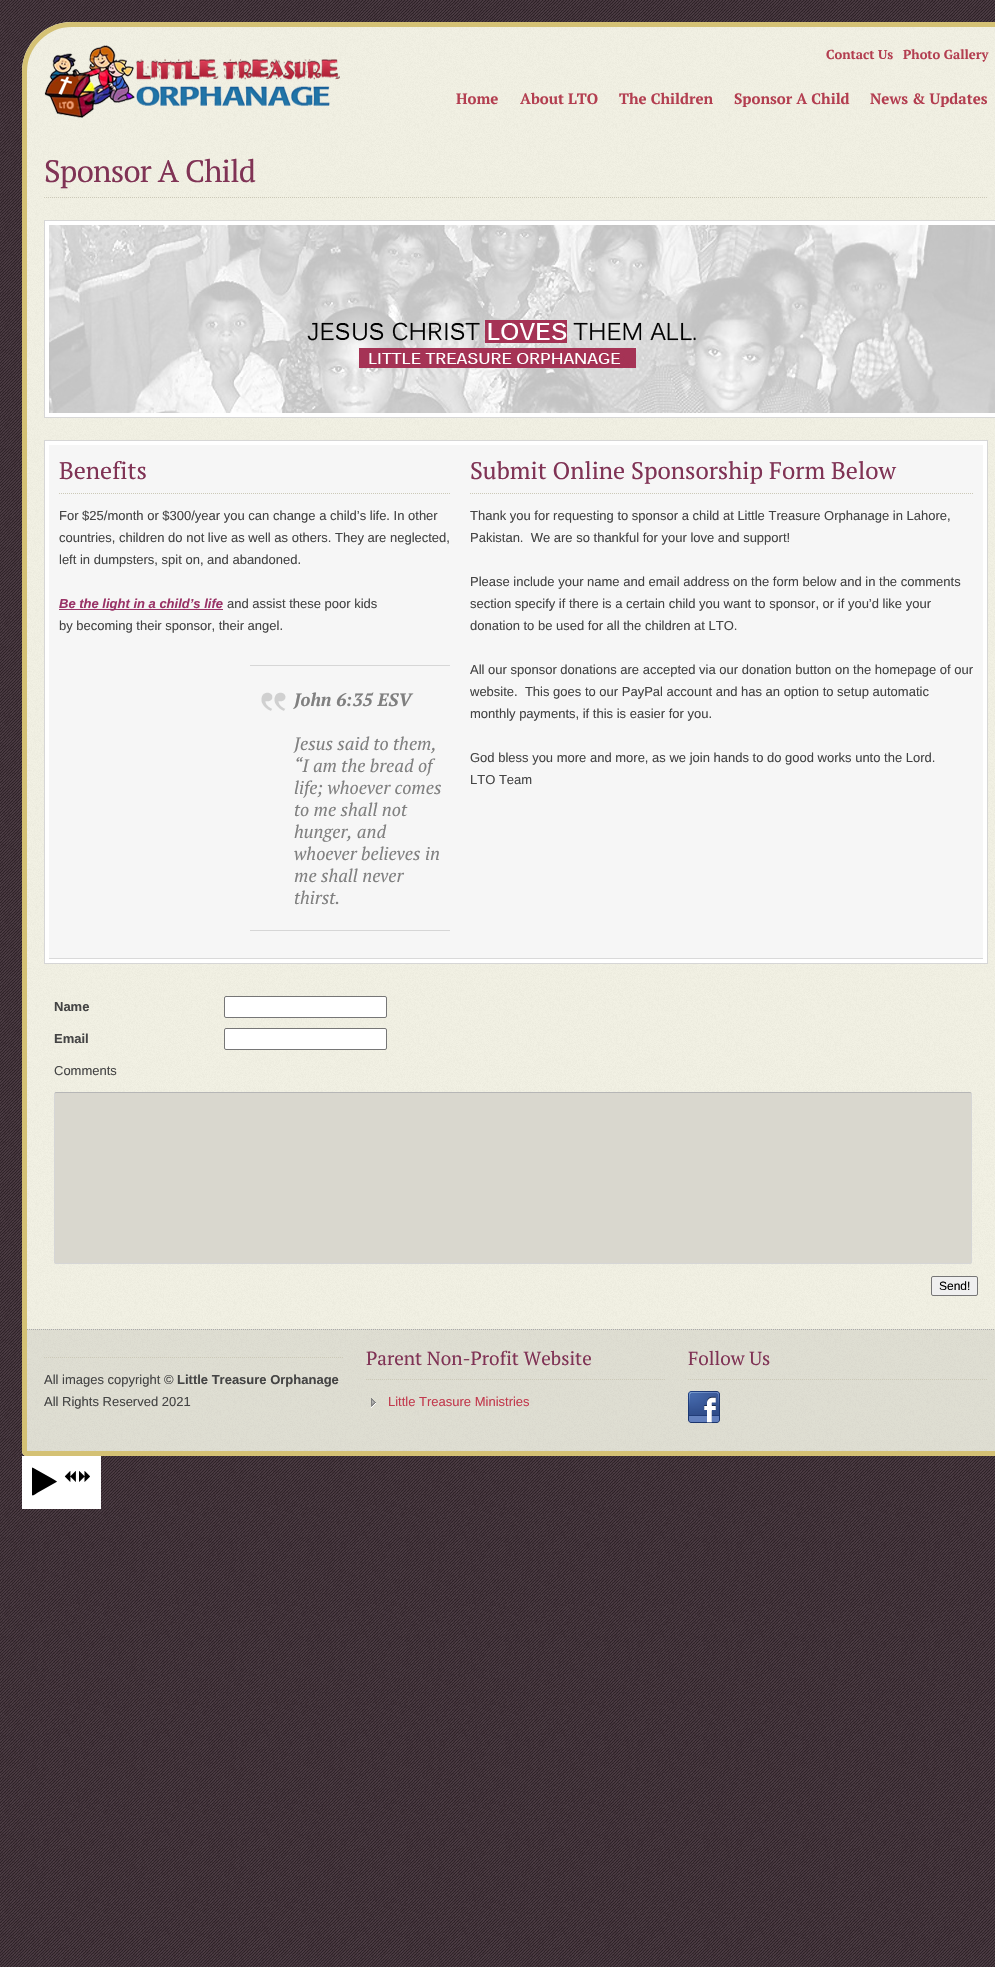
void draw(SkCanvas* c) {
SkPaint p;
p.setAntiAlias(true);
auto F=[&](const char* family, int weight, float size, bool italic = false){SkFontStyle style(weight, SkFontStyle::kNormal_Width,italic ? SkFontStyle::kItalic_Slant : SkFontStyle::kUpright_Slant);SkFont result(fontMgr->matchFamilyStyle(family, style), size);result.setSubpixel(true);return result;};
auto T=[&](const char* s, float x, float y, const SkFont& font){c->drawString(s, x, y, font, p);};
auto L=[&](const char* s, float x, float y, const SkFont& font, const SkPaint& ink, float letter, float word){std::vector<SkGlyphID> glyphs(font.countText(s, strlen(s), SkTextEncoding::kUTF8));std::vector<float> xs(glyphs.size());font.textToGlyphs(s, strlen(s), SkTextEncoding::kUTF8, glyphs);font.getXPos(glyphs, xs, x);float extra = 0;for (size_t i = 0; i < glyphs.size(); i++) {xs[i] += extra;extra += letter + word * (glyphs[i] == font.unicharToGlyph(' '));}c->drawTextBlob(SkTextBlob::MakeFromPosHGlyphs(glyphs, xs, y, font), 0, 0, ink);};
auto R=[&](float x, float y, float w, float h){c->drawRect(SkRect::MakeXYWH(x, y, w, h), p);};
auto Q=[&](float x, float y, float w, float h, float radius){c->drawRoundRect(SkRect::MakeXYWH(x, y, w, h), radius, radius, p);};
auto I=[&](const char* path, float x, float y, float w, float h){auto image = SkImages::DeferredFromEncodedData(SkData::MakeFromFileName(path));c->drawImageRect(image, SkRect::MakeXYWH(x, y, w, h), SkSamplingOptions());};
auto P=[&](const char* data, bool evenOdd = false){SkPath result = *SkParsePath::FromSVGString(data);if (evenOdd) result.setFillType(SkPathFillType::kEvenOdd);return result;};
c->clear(0xff734b5d);
I("1.png",0,0,995,1967);
p.setColor(0xfffffce0);
c->drawPath(P("M72 22h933c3 0 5 2 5 5v1424c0 3-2 5-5 5h-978c-3 0-5-2-5-5v-1379c0-27.5 22.5-50 50-50z"),p);
I("2.png",22,22,973,1434);
p.setStroke(true);
p.setStrokeWidth(5);
p.setColor(0xffd4c174);
c->drawPath(P("M72 24.5h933c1.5 0 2.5 1 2.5 2.5v1424c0 1.5-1 2.5-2.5 2.5h-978c-1.5 0-2.5-1-2.5-2.5v-1379c0-26 21.5-47.5 47.5-47.5z"),p);
I("3.png",44,45,296,73);
auto f1 = F("PT Serif",700,13);
p.setStroke(false);
p.setColor(0xffb33e50);
T("Contact Us",826,59,f1);
T("Photo Gallery",903,59,f1);
auto f2 = F("PT Serif",700,15);
T("Home",456,104,f2);
T("About LTO",520,104,f2);
T("The Children",619,104,f2);
T("Sponsor A Child",734,104,f2);
T("News & Updates",870,104,f2);
p.setStroke(true);
p.setStrokeWidth(1);
p.setColor(0xffccc9b8);
p.setPathEffect(SkDashPathEffect::Make({{1,1}}, 0));
c->drawPath(P("M44 197.5h944"),p);
p.setPathEffect(nullptr);
auto f3 = F("PT Serif",400,31);
p.setStroke(false);
p.setColor(0xff803355);
L("Sponsor A Child",44,182,f3,p,-.75,0);
p.setColor(0xffffffff);
c->drawRect(SkRect::MakeXYWH(44.5,220.5,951,197),p);
p.setStroke(true);
p.setColor(0xffd6d6d6);
c->drawRect(SkRect::MakeXYWH(44.5,220.5,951,197),p);
I("4.png",49,225,946,188);
p.setStroke(false);
p.setColor(0xffffffff);
c->drawRect(SkRect::MakeXYWH(44.5,440.5,943,523),p);
p.setStroke(true);
p.setColor(0xffd6d6d6);
c->drawRect(SkRect::MakeXYWH(44.5,440.5,943,523),p);
p.setStroke(false);
p.setColor(0xfff6f6f6);
R(49,445,934,513);
p.setColor(0xffd9d9d9);
R(49,958,934,1);
p.setStroke(true);
p.setColor(0xffccc9b8);
p.setPathEffect(SkDashPathEffect::Make({{1,1}}, 0));
c->drawPath(P("M59 493.5h391"),p);
p.setPathEffect(nullptr);
auto f4 = F("PT Serif",400,24);
p.setStroke(false);
p.setColor(0xff803355);
T("Benefits",59,479,f4);
auto f5 = F("Liberation Sans",400,13);
p.setColor(0xff444444);
T("For $25/month or $300/year you can change a child’s life. In other",59,520,f5);
T("countries, children do not live as well as others. They are neglected,",59,542,f5);
T("left in dumpsters, spit on, and abandoned.",59,564,f5);
p.setColor(0xff993366);
R(59,609,164,1);
auto f6 = F("Liberation Sans",700,13,true);
T("Be the light in a child’s life",59,608,f6);
p.setColor(0xff444444);
T("and assist these poor kids",227,608,f5);
T("by becoming their sponsor, their angel.",59,630,f5);
I("5.png",261,692,25,19);
p.setColor(0xffd6d6d6);
R(250,665,200,1);
R(250,930,200,1);
auto f7 = F("PT Serif",700,18,true);
p.setColor(0xff808080);
T("John 6:35 ESV",294,706,f7);
auto f8 = F("PT Serif",400,18,true);
T("Jesus said to them,",294,750,f8);
T("“I am the bread of",294,772,f8);
T("life; whoever comes",294,794,f8);
T("to me shall not",294,816,f8);
T("hunger, and",294,838,f8);
T("whoever believes in",294,860,f8);
T("me shall never",294,882,f8);
T("thirst.",294,904,f8);
p.setStroke(true);
p.setColor(0xffccc9b8);
p.setPathEffect(SkDashPathEffect::Make({{1,1}}, 0));
c->drawPath(P("M470 493.5h503"),p);
p.setPathEffect(nullptr);
p.setStroke(false);
p.setColor(0xff803355);
T("Submit Online Sponsorship Form Below",470,479,f4);
p.setColor(0xff444444);
T("Thank you for requesting to sponsor a child at Little Treasure Orphanage in Lahore,",470,520,f5);
T("Pakistan.  We are so thankful for your love and support!",470,542,f5);
T("Please include your name and email address on the form below and in the comments",470,586,f5);
T("section specify if there is a certain child you want to sponsor, or if you’d like your",470,608,f5);
T("donation to be used for all the children at LTO.",470,630,f5);
T("All our sponsor donations are accepted via our donation button on the homepage of our",470,674,f5);
T("website.  This goes to our PayPal account and has an option to setup automatic",470,696,f5);
T("monthly payments, if this is easier for you.",470,718,f5);
T("God bless you more and more, as we join hands to do good works unto the Lord.",470,762,f5);
T("LTO Team",470,784,f5);
auto f9 = F("Liberation Sans",700,13);
T("Name",54,1011,f9);
p.setColor(0xffffffff);
c->drawRoundRect(SkRect::MakeXYWH(224.5,996.5,162,21),1.5,1.5,p);
p.setStroke(true);
p.setColor(0xff767676);
c->drawRoundRect(SkRect::MakeXYWH(224.5,996.5,162,21),1.5,1.5,p);
p.setStroke(false);
p.setColor(0xff444444);
T("Email",54,1043,f9);
p.setColor(0xffffffff);
c->drawRoundRect(SkRect::MakeXYWH(224.5,1028.5,162,21),1.5,1.5,p);
p.setStroke(true);
p.setColor(0xff767676);
c->drawRoundRect(SkRect::MakeXYWH(224.5,1028.5,162,21),1.5,1.5,p);
p.setStroke(false);
p.setColor(0xff444444);
T("Comments",54,1075,f5);
p.setColor(0xffd9d7ce);
Q(54,1092,918,172,2);
p.setStroke(true);
p.setColor(0xffb6b6b6);
c->drawPath(P("M55 1093l1-.5h914l1 .5"),p);
p.setColor(0xffd6d6d6);
c->drawPath(P("M971 1093l.5 1v168l-.5 1l-1 .5h-914l-1-.5l-.5-1v-168l.5-1"),p);
p.setStroke(false);
p.setColor(0xffefefef);
c->drawRoundRect(SkRect::MakeXYWH(931.5,1276.5,46,19),1.5,1.5,p);
p.setStroke(true);
p.setColor(0xff767676);
c->drawRoundRect(SkRect::MakeXYWH(931.5,1276.5,46,19),1.5,1.5,p);
auto f10 = F("Liberation Sans",400,12);
p.setStroke(false);
p.setColor(0xff000000);
T("Send!",939,1290,f10);
p.setColor(0x21646464);
R(27,1329,968,122);
p.setStroke(true);
p.setColor(0xffaaaaaa);
p.setPathEffect(SkDashPathEffect::Make({{1,1}}, 0));
c->drawPath(P("M27 1329.5h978"),p);
p.setPathEffect(nullptr);
p.setColor(0xffccc9b8);
p.setPathEffect(SkDashPathEffect::Make({{1,1}}, 0));
c->drawPath(P("M366 1379.5h300"),p);
p.setPathEffect(nullptr);
auto f11 = F("PT Serif",400,19);
p.setStroke(false);
p.setColor(0xff803355);
T("Parent Non-Profit Website",366,1365,f11);
I("6.png",371,1398,5,10);
p.setColor(0xffc23a4e);
T("Little Treasure Ministries",388,1406,f5);
p.setStroke(true);
p.setColor(0xffccc9b8);
p.setPathEffect(SkDashPathEffect::Make({{1,1}}, 0));
c->drawPath(P("M688 1379.5h300"),p);
p.setPathEffect(nullptr);
p.setStroke(false);
p.setColor(0xff803355);
T("Follow Us",688,1365,f11);
I("7.png",688,1391,32,32);
p.setStroke(true);
p.setColor(0xffccc9b8);
p.setPathEffect(SkDashPathEffect::Make({{1,1}}, 0));
c->drawPath(P("M44 1357.5h300"),p);
p.setPathEffect(nullptr);
p.setStroke(false);
p.setColor(0xff444444);
T("All images copyright ©",44,1384,f5);
T("Little Treasure Orphanage",177,1384,f9);
T("All Rights Reserved 2021",44,1406,f5);
p.setColor(0xffffffff);
R(22,1456,79,53);
p.setColor(0xff000000);
c->drawPath(P("M56.5 1482l-19.5 11c-.5 .5-4 3.5-5 2v-27l.5-.5l20.5 11.5l4 2.5z"),p);
I("8.png",64,1471,12,11);
I("9.png",79,1471,11,11);
}
